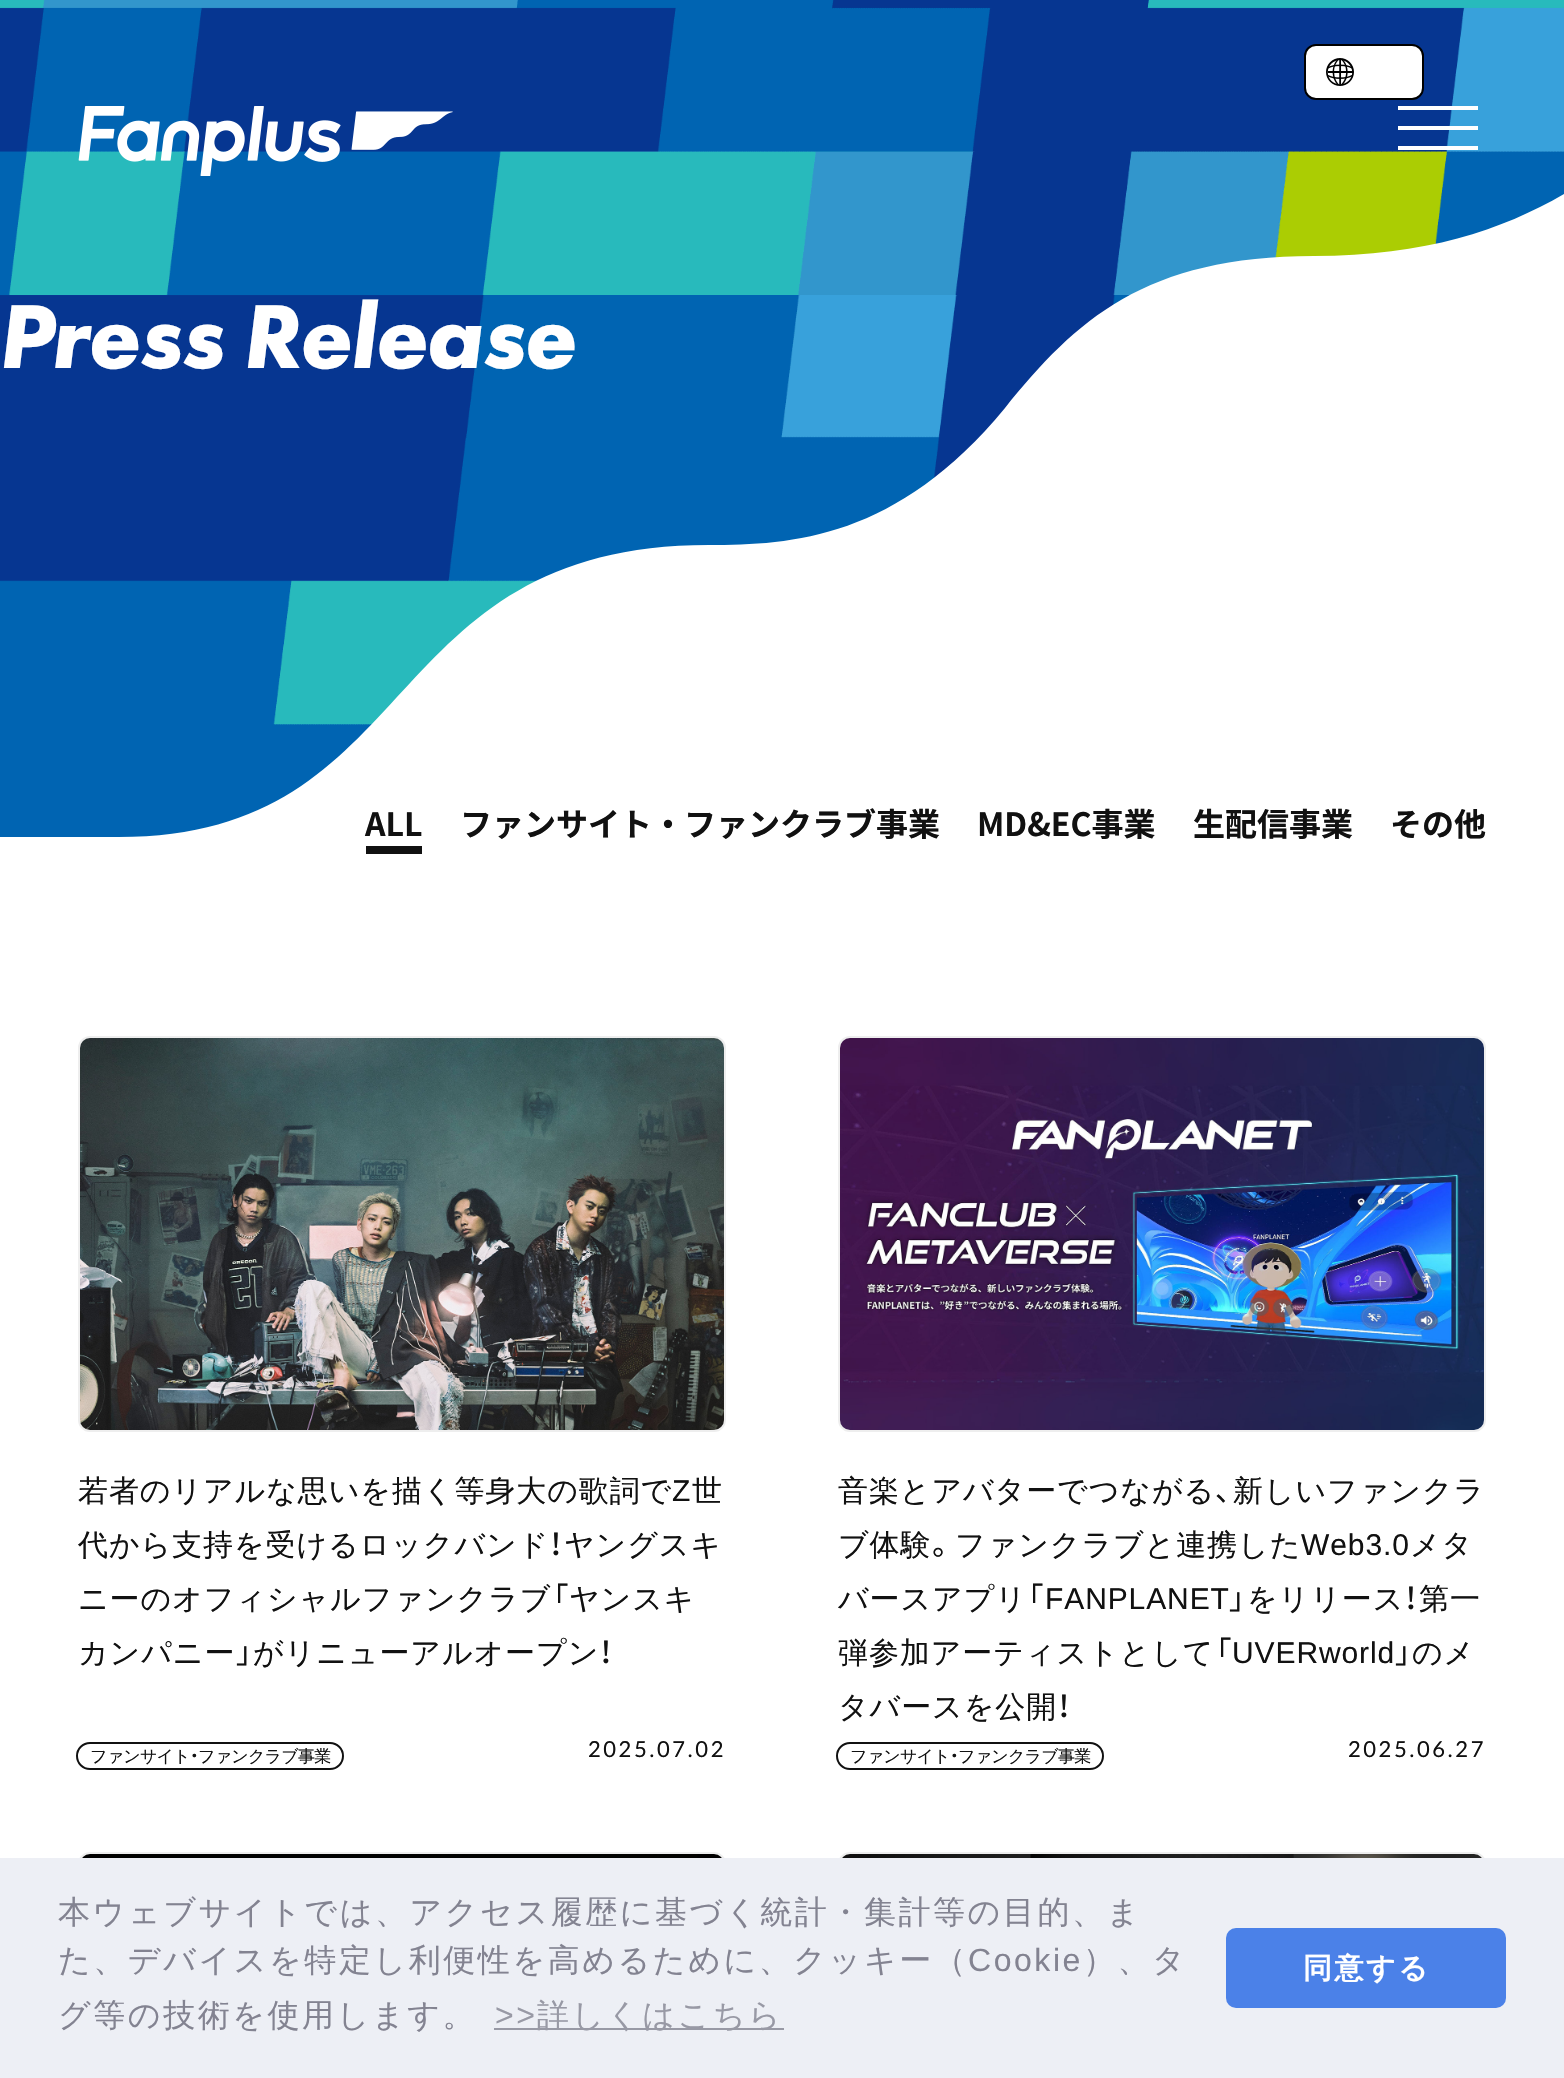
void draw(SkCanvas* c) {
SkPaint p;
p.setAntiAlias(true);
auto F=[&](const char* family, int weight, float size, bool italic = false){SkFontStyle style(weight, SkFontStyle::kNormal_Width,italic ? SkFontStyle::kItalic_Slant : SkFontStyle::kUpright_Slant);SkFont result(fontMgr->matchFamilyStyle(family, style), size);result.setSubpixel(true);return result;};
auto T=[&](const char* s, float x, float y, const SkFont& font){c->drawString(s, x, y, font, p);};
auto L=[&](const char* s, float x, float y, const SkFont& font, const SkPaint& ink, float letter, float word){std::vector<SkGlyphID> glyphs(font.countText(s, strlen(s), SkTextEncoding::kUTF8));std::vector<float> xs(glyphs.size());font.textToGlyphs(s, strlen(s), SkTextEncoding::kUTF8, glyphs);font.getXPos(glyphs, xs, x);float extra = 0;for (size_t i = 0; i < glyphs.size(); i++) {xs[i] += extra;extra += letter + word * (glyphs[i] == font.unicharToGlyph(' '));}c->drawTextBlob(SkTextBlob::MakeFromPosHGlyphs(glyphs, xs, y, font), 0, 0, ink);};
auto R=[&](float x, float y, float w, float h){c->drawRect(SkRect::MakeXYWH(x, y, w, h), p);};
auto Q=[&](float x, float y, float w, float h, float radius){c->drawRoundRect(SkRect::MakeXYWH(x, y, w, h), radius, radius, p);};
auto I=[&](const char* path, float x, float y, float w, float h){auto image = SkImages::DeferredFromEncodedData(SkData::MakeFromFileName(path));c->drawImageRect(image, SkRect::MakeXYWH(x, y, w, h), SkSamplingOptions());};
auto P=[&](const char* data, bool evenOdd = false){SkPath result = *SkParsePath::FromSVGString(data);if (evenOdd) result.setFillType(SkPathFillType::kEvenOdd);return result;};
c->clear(0xffffffff);
I("3.png",0,0,1564,837);
I("1.png",78,106,375,70);
p.setColor(0xffffffff);
c->drawRoundRect(SkRect::MakeXYWH(1305,45,118,54),11,11,p);
p.setStroke(true);
p.setStrokeWidth(2);
p.setColor(0xff000000);
c->drawRoundRect(SkRect::MakeXYWH(1305,45,118,54),11,11,p);
I("2.png",1326,58,28,28);
p.setStroke(false);
p.setColor(0xffffffff);
R(1398,106,80,4);
R(1398,126,80,4);
R(1398,146,80,4);
c->save();
c->clipRect(SkRect::MakeXYWH(0,0,1564,876));
c->drawPath(P("M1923-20l-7 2c-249 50-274 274-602 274c-169 0-238 64-309 152c-108 131-213 137-296 137c-336 0-284 292-590 292h-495v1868h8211v-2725z"),p);
c->restore();
auto f1 = F("Futura PT",700,94,true);
L("Press Release",0,368,f1,p,-1.9,0);
auto f2 = F("Noto Sans JP",700,32);
p.setColor(0xff111111);
T("ALL",365,836,f2);
R(366,846,56,8);
T("ファンサイト・ファンクラブ事業",460,836,f2);
T("MD&EC事業",977,836,f2);
T("生配信事業",1193,836,f2);
T("その他",1390,836,f2);
p.setStroke(true);
p.setColor(0xffeeeeee);
c->drawRoundRect(SkRect::MakeXYWH(79,1037,646,394),11,11,p);
I("4.png",80,1038,644,392);
auto f3 = F("WenQuanYi Zen Hei",500,30);
p.setStroke(false);
p.setColor(0xff111111);
L("若者のリアルな思いを描く等身大の歌詞で",78,1501,f3,p,.9,0);
auto f4 = F("Liberation Sans",400,30);
L("Z",672,1501,f4,p,.9,0);
L("世",692,1501,f3,p,.9,0);
L("代から支持を受けるロックバンド",78,1555,f3,p,.9,0);
auto f5 = F("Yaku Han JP",400,30);
L("！",549,1555,f5,p,.9,0);
L("ヤングスキ",564,1555,f3,p,.9,0);
L("ニーのオフィシャルファンクラブ",78,1609,f3,p,.9,0);
L("「",552,1609,f5,p,.9,0);
L("ヤンスキ",569,1609,f3,p,.9,0);
L("カンパニー",78,1663,f3,p,.9,0);
L("」",236,1663,f5,p,.9,0);
L("がリニューアルオープン",253,1663,f3,p,.9,0);
L("！",599,1663,f5,p,.9,0);
p.setStroke(true);
c->drawRoundRect(SkRect::MakeXYWH(77,1743,266,26),13,13,p);
auto f6 = F("WenQuanYi Zen Hei",500,17);
p.setStroke(false);
L("ファンサイト",90,1762,f6,p,-.75,0);
auto f7 = F("Yaku Han JP",400,17);
L("・",190,1762,f7,p,-.75,0);
L("ファンクラブ事業",198,1762,f6,p,-.75,0);
auto f8 = F("Lato",400,22);
L("2025.07.02",588,1757,f8,p,2.55,0);
p.setStroke(true);
p.setColor(0xffeeeeee);
c->drawRoundRect(SkRect::MakeXYWH(839,1037,646,394),11,11,p);
I("5.png",840,1038,644,392);
p.setStroke(false);
p.setColor(0xff111111);
L("音楽とアバターでつながる",838,1501,f3,p,.9,0);
L("、",1215,1501,f5,p,.9,0);
L("新しいファンクラ",1233,1501,f3,p,.9,0);
L("ブ体験",838,1555,f3,p,.9,0);
L("。",932,1555,f5,p,.9,0);
L("ファンクラブと連携した",955,1555,f3,p,.9,0);
L("Web3.0",1301,1555,f4,p,.9,0);
L("メタ",1410,1555,f3,p,.9,0);
L("バースアプリ",838,1609,f3,p,.9,0);
L("「",1027,1609,f5,p,.9,0);
L("FANPLANET",1045,1609,f4,p,.9,0);
L("」",1229,1609,f5,p,.9,0);
L("をリリース",1247,1609,f3,p,.9,0);
L("！",1404,1609,f5,p,.9,0);
L("第一",1419,1609,f3,p,.9,0);
L("弾参加アーティストとして",838,1663,f3,p,.9,0);
L("「",1215,1663,f5,p,.9,0);
L("UVERworld",1232,1663,f4,p,.9,0);
L("」",1395,1663,f5,p,.9,0);
L("のメ",1412,1663,f3,p,.9,0);
L("タバースを公開",838,1717,f3,p,.9,0);
L("！",1057,1717,f5,p,.9,0);
p.setStroke(true);
c->drawRoundRect(SkRect::MakeXYWH(837,1743,266,26),13,13,p);
p.setStroke(false);
L("ファンサイト",850,1762,f6,p,-.75,0);
L("・",950,1762,f7,p,-.75,0);
L("ファンクラブ事業",958,1762,f6,p,-.75,0);
L("2025.06.27",1348,1757,f8,p,2.55,0);
p.setStroke(true);
p.setColor(0xffeeeeee);
c->drawRoundRect(SkRect::MakeXYWH(79,1853,646,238),11,11,p);
I("6.png",82,1854,640,4);
c->drawRoundRect(SkRect::MakeXYWH(839,1853,646,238),11,11,p);
I("7.png",842,1854,640,4);
p.setStroke(false);
p.setColor(0xffedeff5);
R(0,1858,1564,220);
auto f9 = F("WenQuanYi Zen Hei",500,32);
p.setColor(0xff838391);
L("本ウェブサイトでは、アクセス履歴に基づく統計・集計等の目的、ま",58,1923,f9,p,2.55,0);
L("た、デバイスを特定し利便性を高めるために、クッキー（",58,1971,f9,p,2.55,0);
auto f10 = F("Liberation Sans",400,32);
L("Cookie",968,1971,f10,p,2.55,0);
L("）、タ",1083,1971,f9,p,2.55,0);
L("グ等の技術を使用します。",58,2026,f9,p,2.55,0);
p.setColor(0xff9899a5);
L(">>",495,2026,f10,p,2.55,0);
R(494,2028,290,2);
L("詳しくはこちら",537,2026,f9,p,2.55,0);
p.setColor(0xff4b81e8);
Q(1226,1928,280,80,10);
auto f11 = F("WenQuanYi Zen Hei",700,29);
p.setColor(0xffffffff);
L("同意する",1303,1978,f11,p,2.55,0);
}
